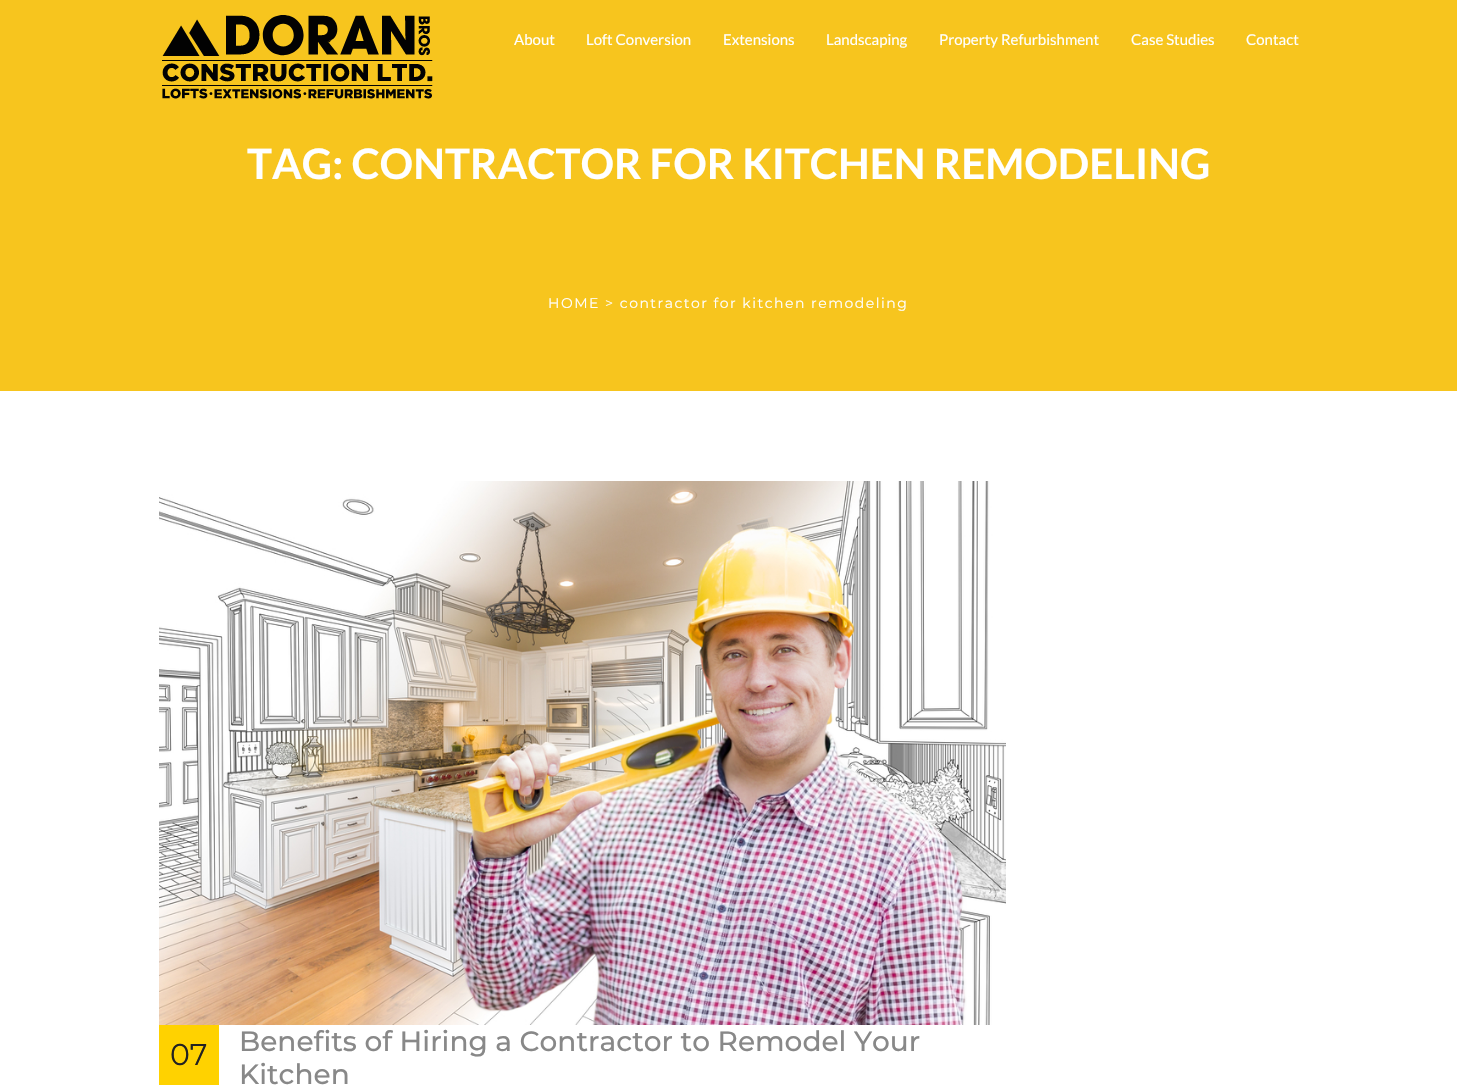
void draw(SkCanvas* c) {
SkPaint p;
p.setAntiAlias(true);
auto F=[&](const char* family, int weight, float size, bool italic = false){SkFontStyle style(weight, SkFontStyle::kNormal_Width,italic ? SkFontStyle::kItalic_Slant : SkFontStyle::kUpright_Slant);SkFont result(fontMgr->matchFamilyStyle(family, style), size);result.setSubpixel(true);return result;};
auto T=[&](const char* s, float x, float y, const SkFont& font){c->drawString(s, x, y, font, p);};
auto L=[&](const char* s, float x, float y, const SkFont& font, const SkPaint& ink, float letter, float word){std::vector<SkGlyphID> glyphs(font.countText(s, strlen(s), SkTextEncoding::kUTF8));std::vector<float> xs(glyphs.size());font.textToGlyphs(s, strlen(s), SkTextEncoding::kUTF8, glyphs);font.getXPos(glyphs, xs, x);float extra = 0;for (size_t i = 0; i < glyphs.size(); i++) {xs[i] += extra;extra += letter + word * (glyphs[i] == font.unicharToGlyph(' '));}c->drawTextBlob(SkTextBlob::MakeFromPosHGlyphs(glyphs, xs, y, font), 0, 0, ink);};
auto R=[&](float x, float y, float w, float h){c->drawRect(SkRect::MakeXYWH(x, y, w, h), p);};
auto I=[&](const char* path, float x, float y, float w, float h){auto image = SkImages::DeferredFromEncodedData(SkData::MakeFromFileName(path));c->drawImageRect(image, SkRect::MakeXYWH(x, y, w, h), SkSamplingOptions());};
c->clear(0xffffffff);
p.setColor(0xfff7c51e);
R(0,0,1457,391);
I("1.png",162,15,271,84);
auto f1 = F("Lato",400,15);
p.setColor(0xffffffff);
T("About",514,45,f1);
T("Loft Conversion",586,45,f1);
T("Extensions",723,45,f1);
T("Landscaping",826,45,f1);
T("Property Refurbishment",939,45,f1);
T("Case Studies",1131,45,f1);
T("Contact",1246,45,f1);
auto f2 = F("Lato",700,42);
T("TAG: CONTRACTOR FOR KITCHEN REMODELING",247,179,f2);
auto f3 = F("Montserrat",400,14);
L("HOME > contractor for kitchen remodeling",548,308,f3,p,1.5,0);
I("2.png",159,481,847,544);
p.setColor(0xffffd200);
R(159,1025,60,60);
auto f4 = F("Montserrat",400,30);
p.setColor(0xff222222);
T("07",170,1065,f4);
auto f5 = F("Montserrat",500,28);
p.setColor(0xff888888);
T("Benefits of Hiring a Contractor to Remodel Your",239,1051,f5);
T("Kitchen",239,1084,f5);
}
